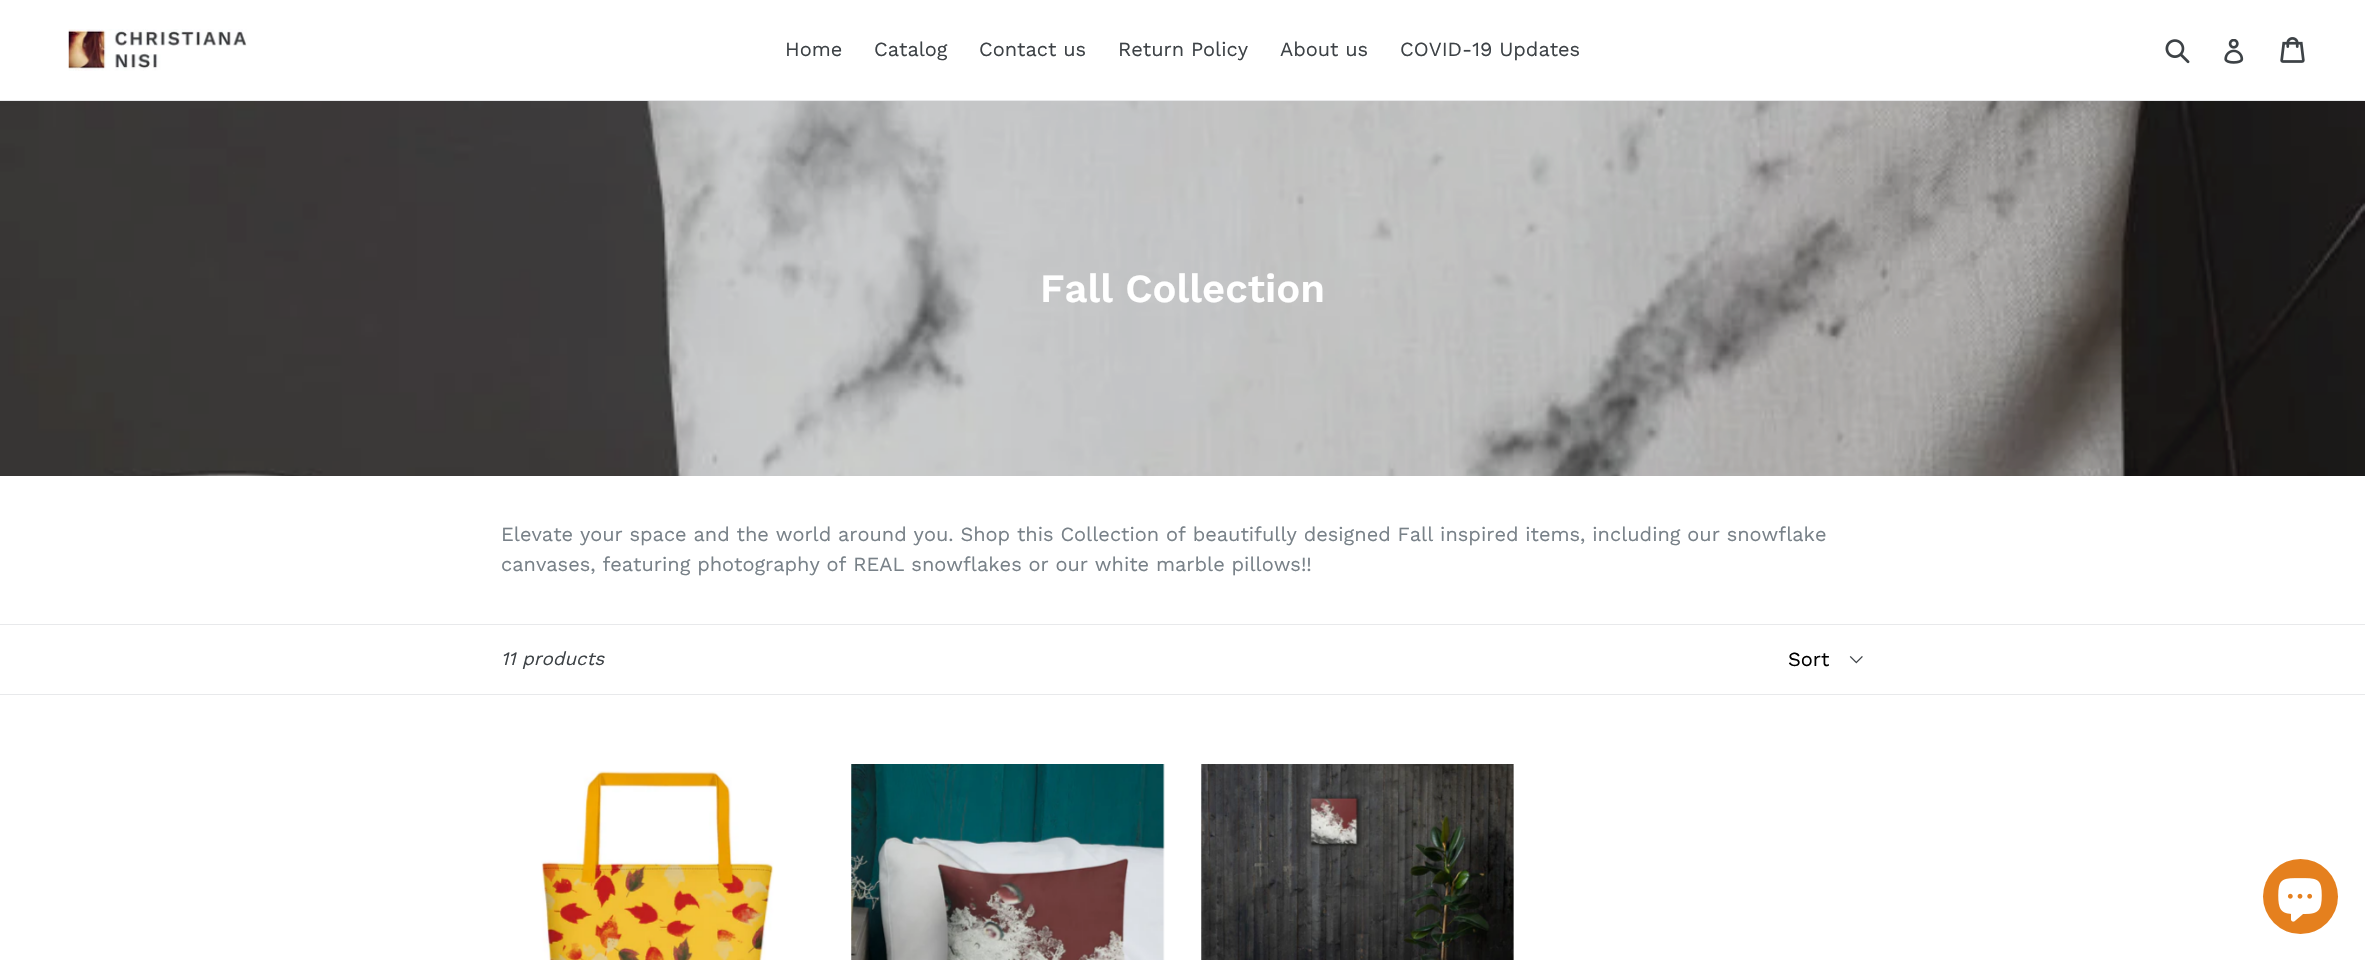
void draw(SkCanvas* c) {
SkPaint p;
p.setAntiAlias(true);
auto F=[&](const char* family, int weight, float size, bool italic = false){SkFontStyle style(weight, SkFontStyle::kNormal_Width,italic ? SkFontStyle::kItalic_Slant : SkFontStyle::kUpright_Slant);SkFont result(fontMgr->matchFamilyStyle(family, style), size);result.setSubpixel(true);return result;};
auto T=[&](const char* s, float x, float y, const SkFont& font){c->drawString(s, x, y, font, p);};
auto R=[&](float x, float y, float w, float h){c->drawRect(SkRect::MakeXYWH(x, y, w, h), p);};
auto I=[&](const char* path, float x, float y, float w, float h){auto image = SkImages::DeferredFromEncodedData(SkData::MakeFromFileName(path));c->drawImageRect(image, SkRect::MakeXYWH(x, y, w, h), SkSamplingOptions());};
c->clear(0xffffffff);
p.setColor(0xffe8e9eb);
R(0,100,2365,1);
I("1.png",68,29,179,42);
auto f1 = F("Work Sans",400,20);
p.setColor(0xff3d4246);
T("Home",785,56,f1);
T("Catalog",874,56,f1);
T("Contact us",979,56,f1);
T("Return Policy",1118,56,f1);
T("About us",1280,56,f1);
T("COVID-19 Updates",1400,56,f1);
I("2.png",2165,39,25,25);
I("3.png",2224,39,20,25);
I("4.png",2280,37,25,26);
I("5.png",0,101,2365,375);
auto f2 = F("Work Sans",600,40);
p.setColor(0xffffffff);
T("Fall Collection",1040,302,f2);
p.setColor(0xff788188);
T("Elevate your space and the world around you. Shop this Collection of beautifully designed Fall inspired items, including our snowflake",501,541,f1);
T("canvases, featuring photography of REAL snowflakes or our white marble pillows!!",501,571,f1);
p.setColor(0xffe8e9eb);
R(0,624,2365,1);
R(0,694,2365,1);
auto f3 = F("Work Sans",400,18.75,true);
p.setColor(0xff3d4246);
T("11 products",501,665,f3);
I("6.png",1849,656,14,8);
p.setColor(0xff000000);
T("Sort",1788,666,f1);
I("7.png",541,771,233,189);
I("8.png",851,764,314,196);
I("9.png",1201,764,313,196);
p.setColor(0xffe5801e);
c->drawCircle(2300.5,896.5,37.5,p);
I("10.png",2278,878,44,44);
}
